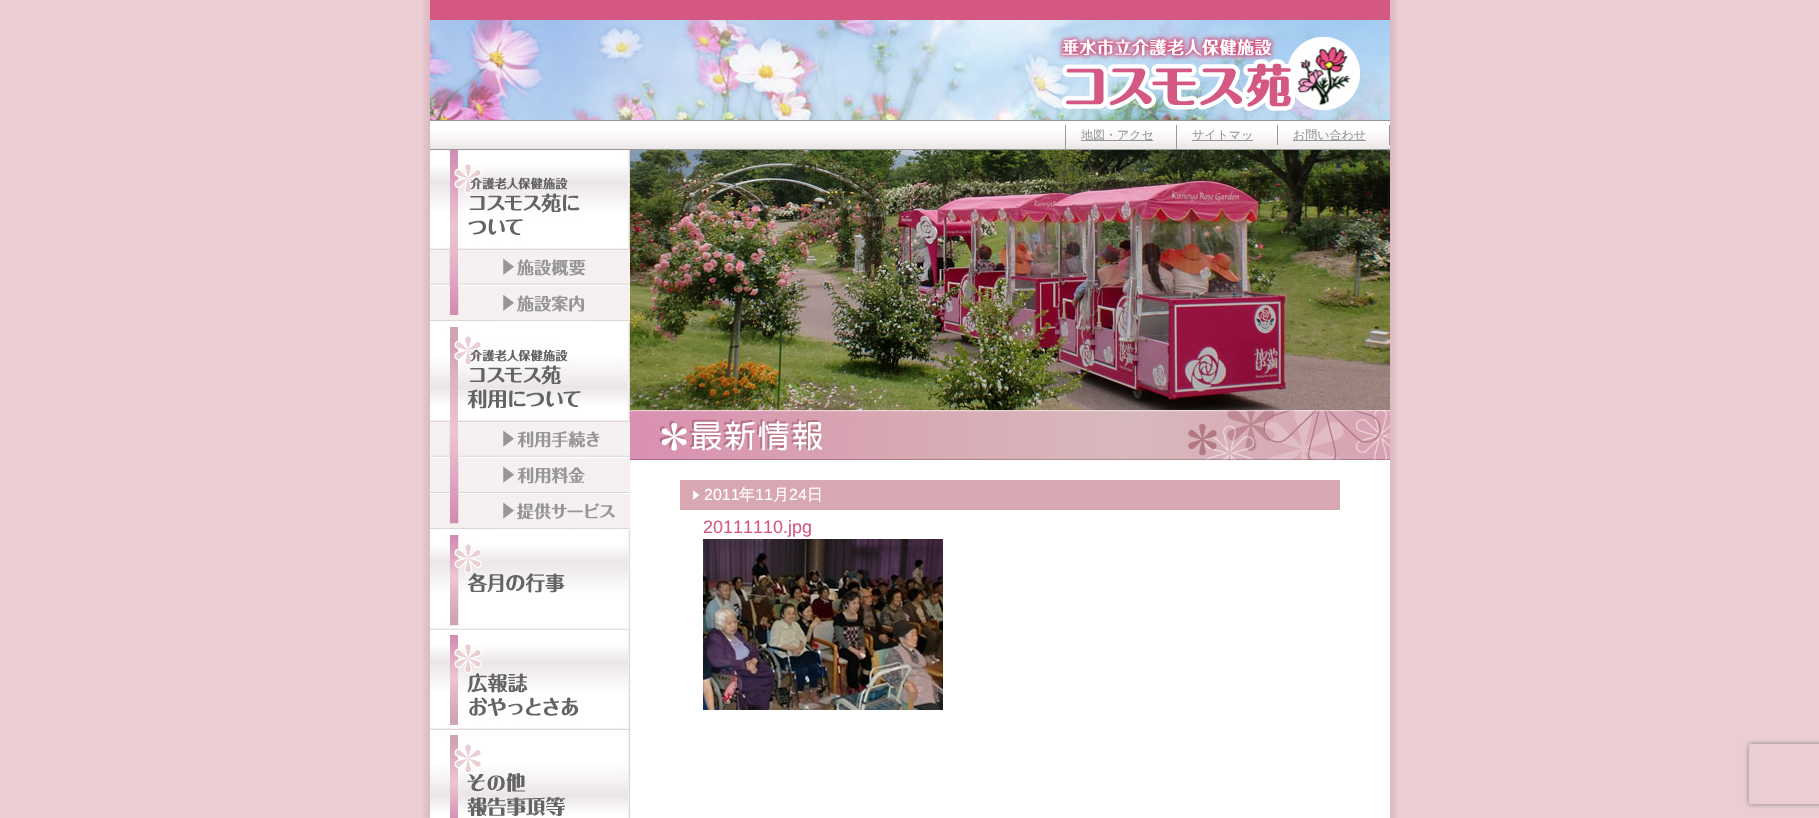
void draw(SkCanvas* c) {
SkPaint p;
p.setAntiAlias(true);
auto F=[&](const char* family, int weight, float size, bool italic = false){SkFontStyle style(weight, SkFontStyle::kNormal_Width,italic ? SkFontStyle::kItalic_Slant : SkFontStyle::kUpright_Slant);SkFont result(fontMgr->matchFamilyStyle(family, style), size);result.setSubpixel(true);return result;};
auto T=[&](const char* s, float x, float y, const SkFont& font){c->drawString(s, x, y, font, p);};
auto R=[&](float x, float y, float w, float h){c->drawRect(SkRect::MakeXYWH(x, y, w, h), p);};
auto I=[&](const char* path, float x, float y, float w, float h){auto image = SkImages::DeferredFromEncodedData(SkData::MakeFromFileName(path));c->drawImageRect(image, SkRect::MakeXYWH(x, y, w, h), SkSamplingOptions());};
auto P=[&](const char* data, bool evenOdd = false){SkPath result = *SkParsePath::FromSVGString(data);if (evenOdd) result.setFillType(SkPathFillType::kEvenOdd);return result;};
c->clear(0xffeaced3);
I("1.png",422,0,976,818);
I("2.png",430,0,960,120);
I("3.png",430,120,960,30);
p.setColor(0xff999999);
R(1389,125,1,20);
R(1065,125,1,25);
p.setColor(0xff969696);
R(1081,140,72,1);
auto f1 = F("WenQuanYi Zen Hei",500,12);
T("地図・アクセ",1081,139,f1);
p.setColor(0xff999999);
R(1176,125,1,25);
p.setColor(0xff969696);
R(1192,140,61,1);
T("サイトマッ",1192,139,f1);
p.setColor(0xff999999);
R(1277,125,1,20);
p.setColor(0xff969696);
R(1293,140,73,1);
T("お問い合わせ",1293,139,f1);
I("4.png",430,150,200,100);
I("5.png",430,250,200,36);
I("6.png",430,286,200,36);
I("7.png",430,322,200,100);
I("8.png",430,422,200,36);
I("9.png",430,458,200,36);
I("10.png",430,494,200,36);
I("11.png",430,530,200,100);
I("12.png",430,630,200,100);
I("13.png",430,730,200,88);
I("14.png",630,150,760,260);
I("15.png",630,410,760,50);
p.setColor(0xffd9a7b2);
R(680,480,660,30);
I("16.png",689,490,11,11);
auto f2 = F("Liberation Sans",400,16);
p.setColor(0xffffffff);
T("2011",704,500,f2);
auto f3 = F("WenQuanYi Zen Hei",500,16);
T("年",739,500,f3);
T("11",755,500,f2);
T("月",773,500,f3);
T("24",789,500,f2);
T("日",807,500,f3);
auto f4 = F("Liberation Sans",400,18);
p.setColor(0xffd45883);
T("20111110.jpg",703,533,f4);
I("17.png",703,539,240,171);
c->save();
c->clipPath(P("M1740 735h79v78h-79zm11 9h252c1 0 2 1 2 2v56c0 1-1 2-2 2h-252c-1 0-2-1-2-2v-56c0-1 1-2 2-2z",true),true);
p.setColor(0xff808080);
p.setMaskFilter(SkMaskFilter::MakeBlur(kNormal_SkBlurStyle, 2.5));
c->drawRoundRect(SkRect::MakeXYWH(1749,744,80,60),2,2,p);
p.setMaskFilter(nullptr);
c->restore();
}
